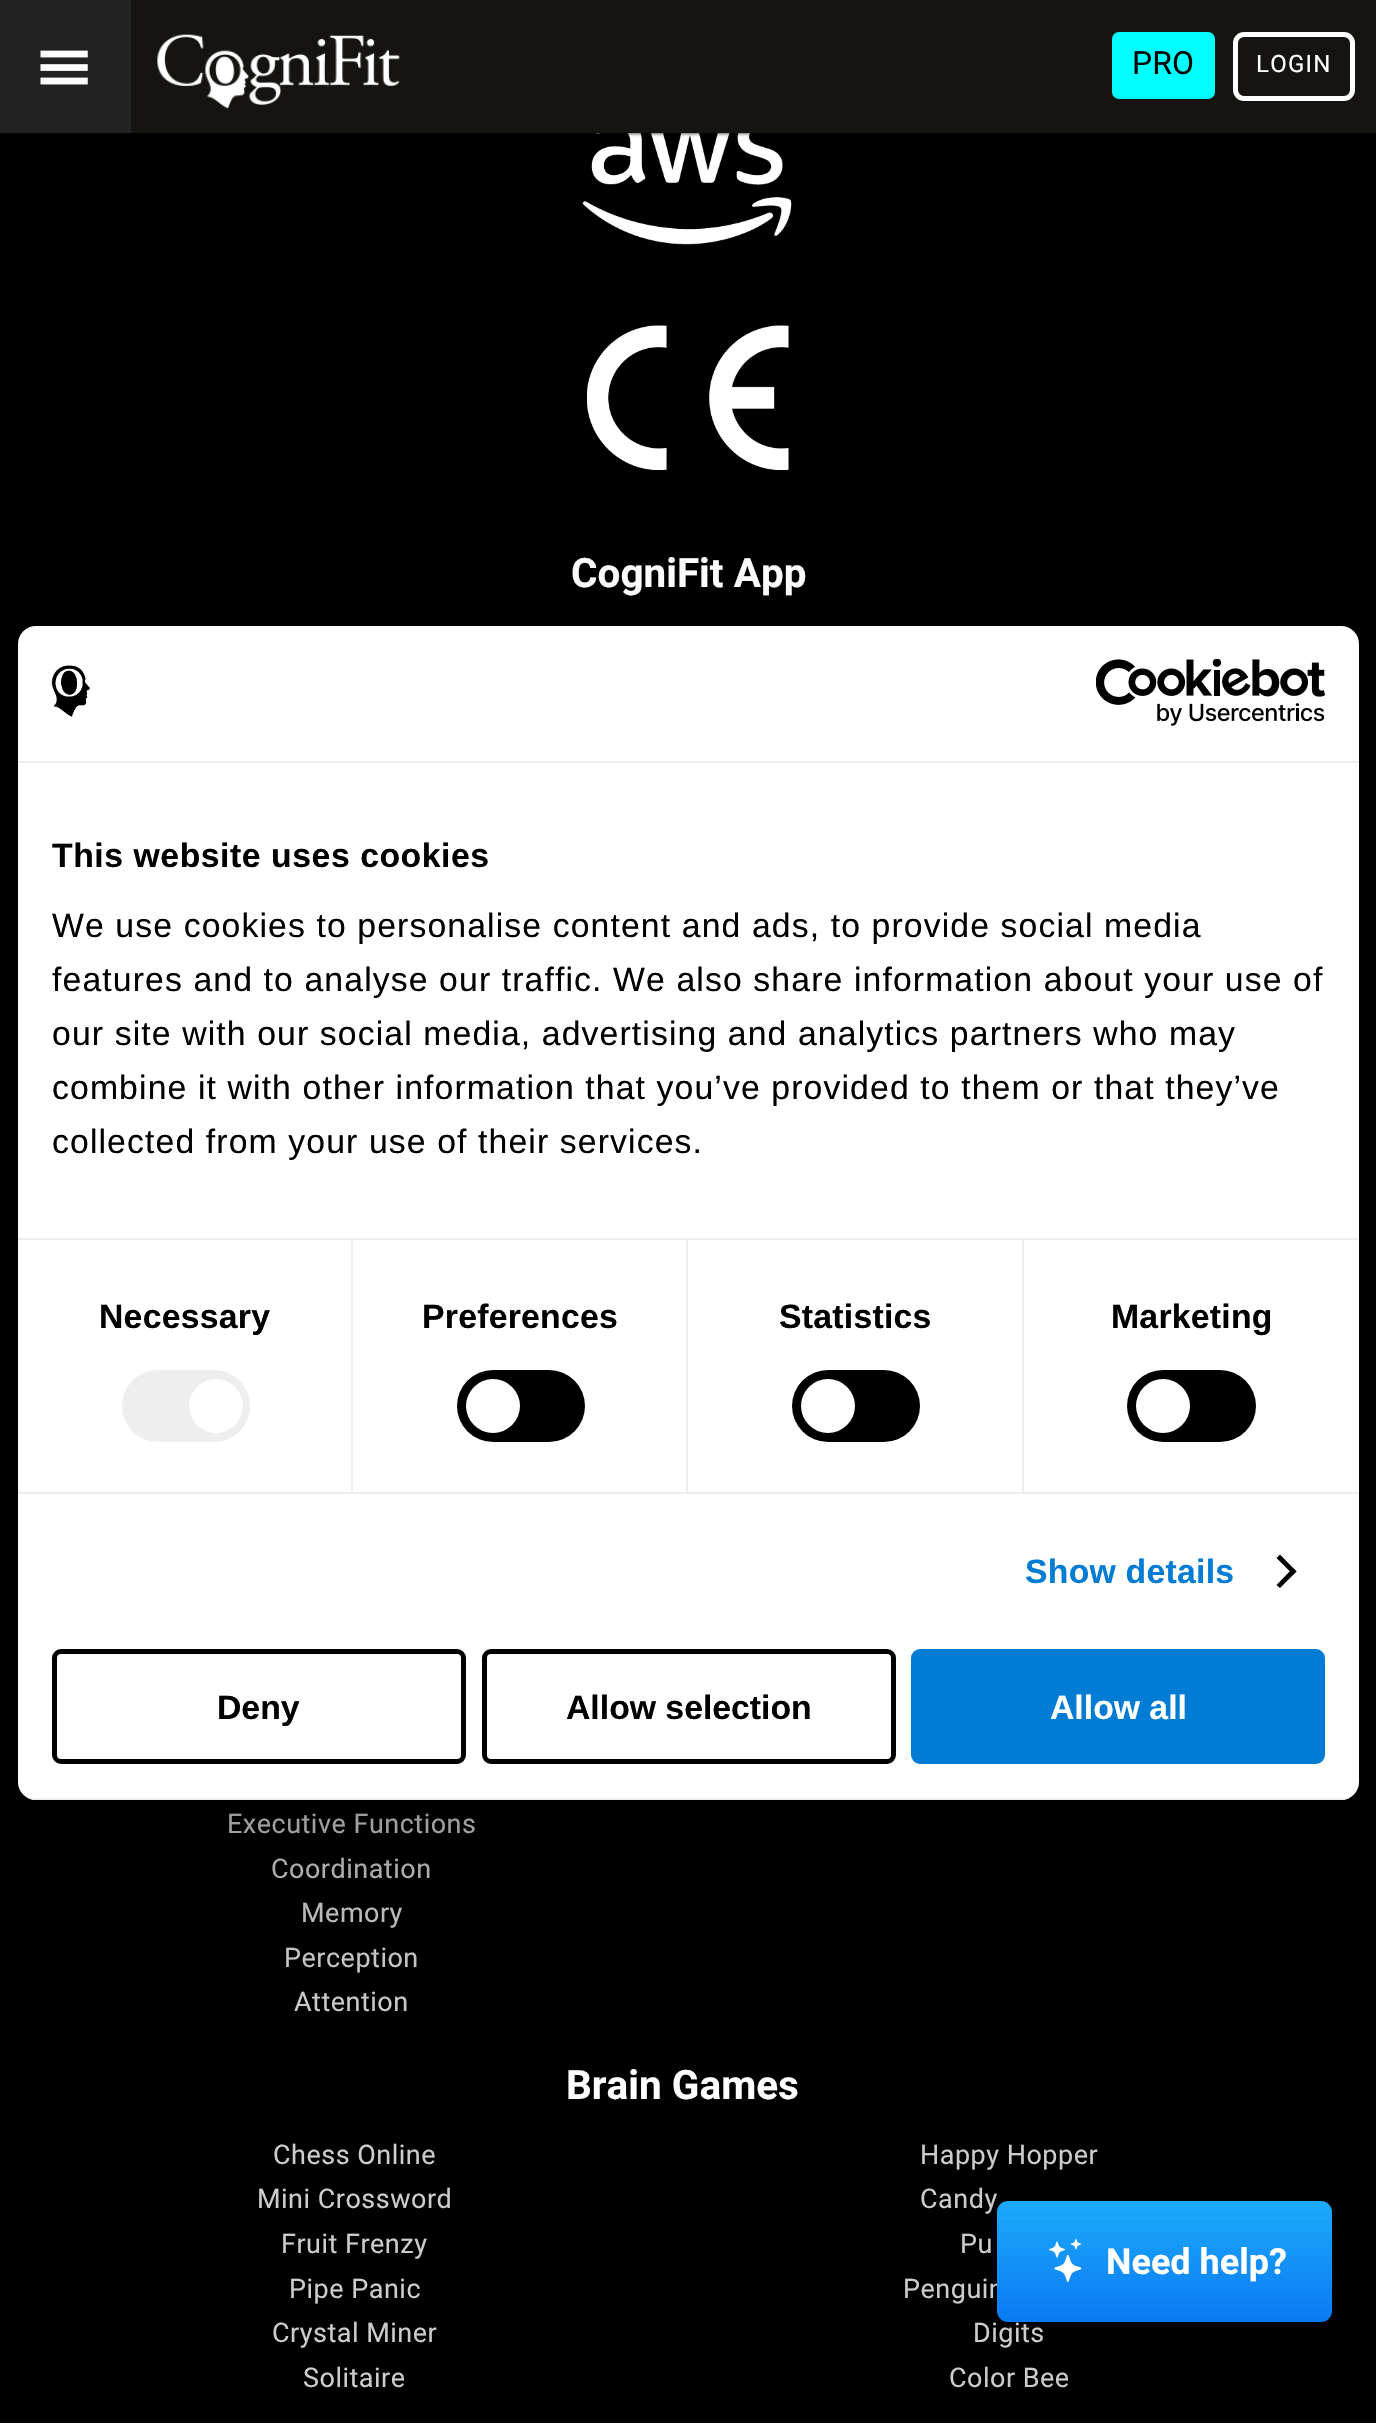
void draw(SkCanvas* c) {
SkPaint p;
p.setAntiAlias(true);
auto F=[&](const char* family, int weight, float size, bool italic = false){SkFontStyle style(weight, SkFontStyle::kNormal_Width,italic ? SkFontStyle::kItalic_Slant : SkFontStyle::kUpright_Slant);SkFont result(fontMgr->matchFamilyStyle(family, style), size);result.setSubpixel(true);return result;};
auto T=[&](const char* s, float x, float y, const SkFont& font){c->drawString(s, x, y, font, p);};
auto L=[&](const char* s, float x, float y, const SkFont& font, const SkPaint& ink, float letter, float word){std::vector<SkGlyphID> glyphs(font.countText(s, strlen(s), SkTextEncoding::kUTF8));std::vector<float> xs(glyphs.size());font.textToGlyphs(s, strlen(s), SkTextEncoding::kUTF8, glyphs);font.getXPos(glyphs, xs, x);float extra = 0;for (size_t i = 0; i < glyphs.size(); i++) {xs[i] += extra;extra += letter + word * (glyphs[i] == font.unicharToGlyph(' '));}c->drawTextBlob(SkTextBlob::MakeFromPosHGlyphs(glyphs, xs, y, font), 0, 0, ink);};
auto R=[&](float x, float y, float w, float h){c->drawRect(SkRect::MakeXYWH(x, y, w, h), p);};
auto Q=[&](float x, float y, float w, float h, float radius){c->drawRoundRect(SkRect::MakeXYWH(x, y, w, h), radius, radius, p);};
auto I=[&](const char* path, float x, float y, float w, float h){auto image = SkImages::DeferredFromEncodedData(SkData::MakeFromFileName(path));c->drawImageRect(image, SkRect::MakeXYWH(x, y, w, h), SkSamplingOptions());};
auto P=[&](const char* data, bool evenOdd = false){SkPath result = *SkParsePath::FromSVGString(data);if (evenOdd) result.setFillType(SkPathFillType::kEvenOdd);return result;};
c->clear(0xff000000);
I("3.png",582,133,210,112);
p.setColor(0xff000000);
p.setMaskFilter(SkMaskFilter::MakeBlur(kNormal_SkBlurStyle, 2));
c->drawRect(SkRect::MakeXYWH(0,0,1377,133),p);
p.setMaskFilter(nullptr);
p.setColor(0xff161411);
R(131,0,1245,133);
p.setColor(0xff222222);
R(0,0,131,133);
I("1.png",40,50,48,35);
I("2.png",157,34,243,75);
p.setColor(0xff00ffff);
Q(1112,32,103,67,7);
auto f1 = F("Roboto",400,32);
p.setColor(0xff000000);
T("PRO",1132,74,f1);
p.setStroke(true);
p.setStrokeWidth(5);
p.setColor(0xffffffff);
c->drawRoundRect(SkRect::MakeXYWH(1235.5,34.5,117,64),8.5,8.5,p);
auto f2 = F("Roboto",400,24);
p.setStroke(false);
L("LOGIN",1256,72,f2,p,1.25,0);
I("4.png",587,325,202,145);
auto f3 = F("Roboto",700,40.5);
T("CogniFit App",571,587,f3);
auto f4 = F("Roboto",400,27);
p.setColor(0xffcccccc);
L("Executive Functions",227,1833,f4,p,.5,0);
L("Coordination",271,1878,f4,p,.5,0);
L("Memory",301,1922,f4,p,.5,0);
L("Perception",284,1967,f4,p,.5,0);
L("Attention",294,2011,f4,p,.5,0);
p.setColor(0xffffffff);
T("Brain Games",566,2099,f3);
p.setColor(0xffcccccc);
L("Chess Online",273,2164,f4,p,.5,0);
L("Happy Hopper",920,2164,f4,p,.5,0);
L("Mini Crossword",257,2208,f4,p,.5,0);
L("Candy",920,2208,f4,p,.5,0);
L("Fruit Frenzy",281,2253,f4,p,.5,0);
L("Pu",960,2253,f4,p,.5,0);
L("Pipe Panic",289,2298,f4,p,.5,0);
L("Penguin",903,2298,f4,p,.5,0);
L("Crystal Miner",272,2342,f4,p,.5,0);
L("Digits",973,2342,f4,p,.5,0);
L("Solitaire",303,2387,f4,p,.5,0);
L("Color Bee",949,2387,f4,p,.5,0);
p.setColor(0x4d000000);
p.setMaskFilter(SkMaskFilter::MakeBlur(kNormal_SkBlurStyle, 76.5));
c->drawRoundRect(SkRect::MakeXYWH(18,698,1341,1174),18,18,p);
p.setMaskFilter(nullptr);
p.setColor(0xffffffff);
Q(18,626,1341,1174,18);
p.setColor(0xffeeeeee);
R(18,761,1341,2);
I("5.png",51,665,39,52);
I("6.png",1096,659,229,67);
R(18,1238,1341,2);
auto f5 = F("Liberation Sans",700,33.75);
p.setColor(0xff000000);
L("This website uses cookies",52,867,f5,p,.55,0);
auto f6 = F("Liberation Sans",400,33.75);
L("We use cookies to personalise content and ads, to provide social media",52,937,f6,p,1.12,0);
L("features and to analyse our traffic. We also share information about your use of",52,991,f6,p,1.12,0);
L("our site with our social media, advertising and analytics partners who may",52,1045,f6,p,1.12,0);
L("combine it with other information that you’ve provided to them or that they’ve",52,1099,f6,p,1.12,0);
L("collected from your use of their services.",52,1153,f6,p,1.12,0);
p.setColor(0xffeeeeee);
R(18,1492,1341,2);
R(351,1240,2,252);
p.setColor(0xff000000);
L("Necessary",99,1328,f5,p,.25,0);
p.setColor(0xffeeeeee);
Q(122,1370,128,72,36);
p.setColor(0xffffffff);
c->drawCircle(216,1406,27,p);
p.setColor(0xffeeeeee);
R(686,1240,2,252);
p.setColor(0xff000000);
L("Preferences",422,1328,f5,p,.25,0);
Q(457,1370,128,72,36);
p.setColor(0xffffffff);
c->drawCircle(493,1406,27,p);
p.setColor(0xffeeeeee);
R(1022,1240,2,252);
p.setColor(0xff000000);
L("Statistics",779,1328,f5,p,.25,0);
Q(792,1370,128,72,36);
p.setColor(0xffffffff);
c->drawCircle(828,1406,27,p);
p.setColor(0xff000000);
L("Marketing",1111,1328,f5,p,.25,0);
Q(1127,1370,129,72,36);
p.setColor(0xffffffff);
c->drawCircle(1163,1406,27,p);
p.setColor(0xff007cd5);
L("Show details",1025,1583,f5,p,.25,0);
p.setColor(0xff000000);
c->drawPath(P("M1280 1554.5l16.5 17l-3.5 3l-16.5-16.5z"),p);
c->drawPath(P("M1293 1568l3.5 3.5l-16.5 16.5l-3.5-3z"),p);
c->save();
c->clipPath(P("M36 626h1305c10 0 18 8 18 18v1138c0 10-8 18-18 18h-1305c-10 0-18-8-18-18v-1138c0-10 8-18 18-18z"),true);
p.setColor(0xffeeeeee);
R(28,1798,1321,2);
c->restore();
p.setStroke(true);
p.setColor(0xff000000);
c->drawRoundRect(SkRect::MakeXYWH(54.5,1651.5,409,110),6.5,6.5,p);
p.setStroke(false);
T("Deny",217,1719,f5);
p.setStroke(true);
c->drawRoundRect(SkRect::MakeXYWH(484.5,1651.5,409,110),6.5,6.5,p);
p.setStroke(false);
T("Allow selection",566,1719,f5);
p.setColor(0xff007cd5);
c->drawRoundRect(SkRect::MakeXYWH(913.5,1651.5,409,110),6.5,6.5,p);
p.setStroke(true);
c->drawRoundRect(SkRect::MakeXYWH(913.5,1651.5,409,110),6.5,6.5,p);
p.setStroke(false);
p.setColor(0xffffffff);
T("Allow all",1050,1719,f5);
{
const SkColor colors[] = {0xff1caafa,0xff0b7af4};
const float stops[] = {0,1};
const SkPoint ends[] = {{1164,2201}, {1164,2322}};
p.setShader(SkGradientShader::MakeLinear(ends, colors, stops, 2, SkTileMode::kClamp));
p.setAlpha(255);
}
Q(997,2201,335,121,11);
I("7.png",1049,2239,33,43);
auto f7 = F("Roboto",700,36);
p.setShader(nullptr);
p.setColor(0xffffffff);
T("Need help?",1106,2274,f7);
}
